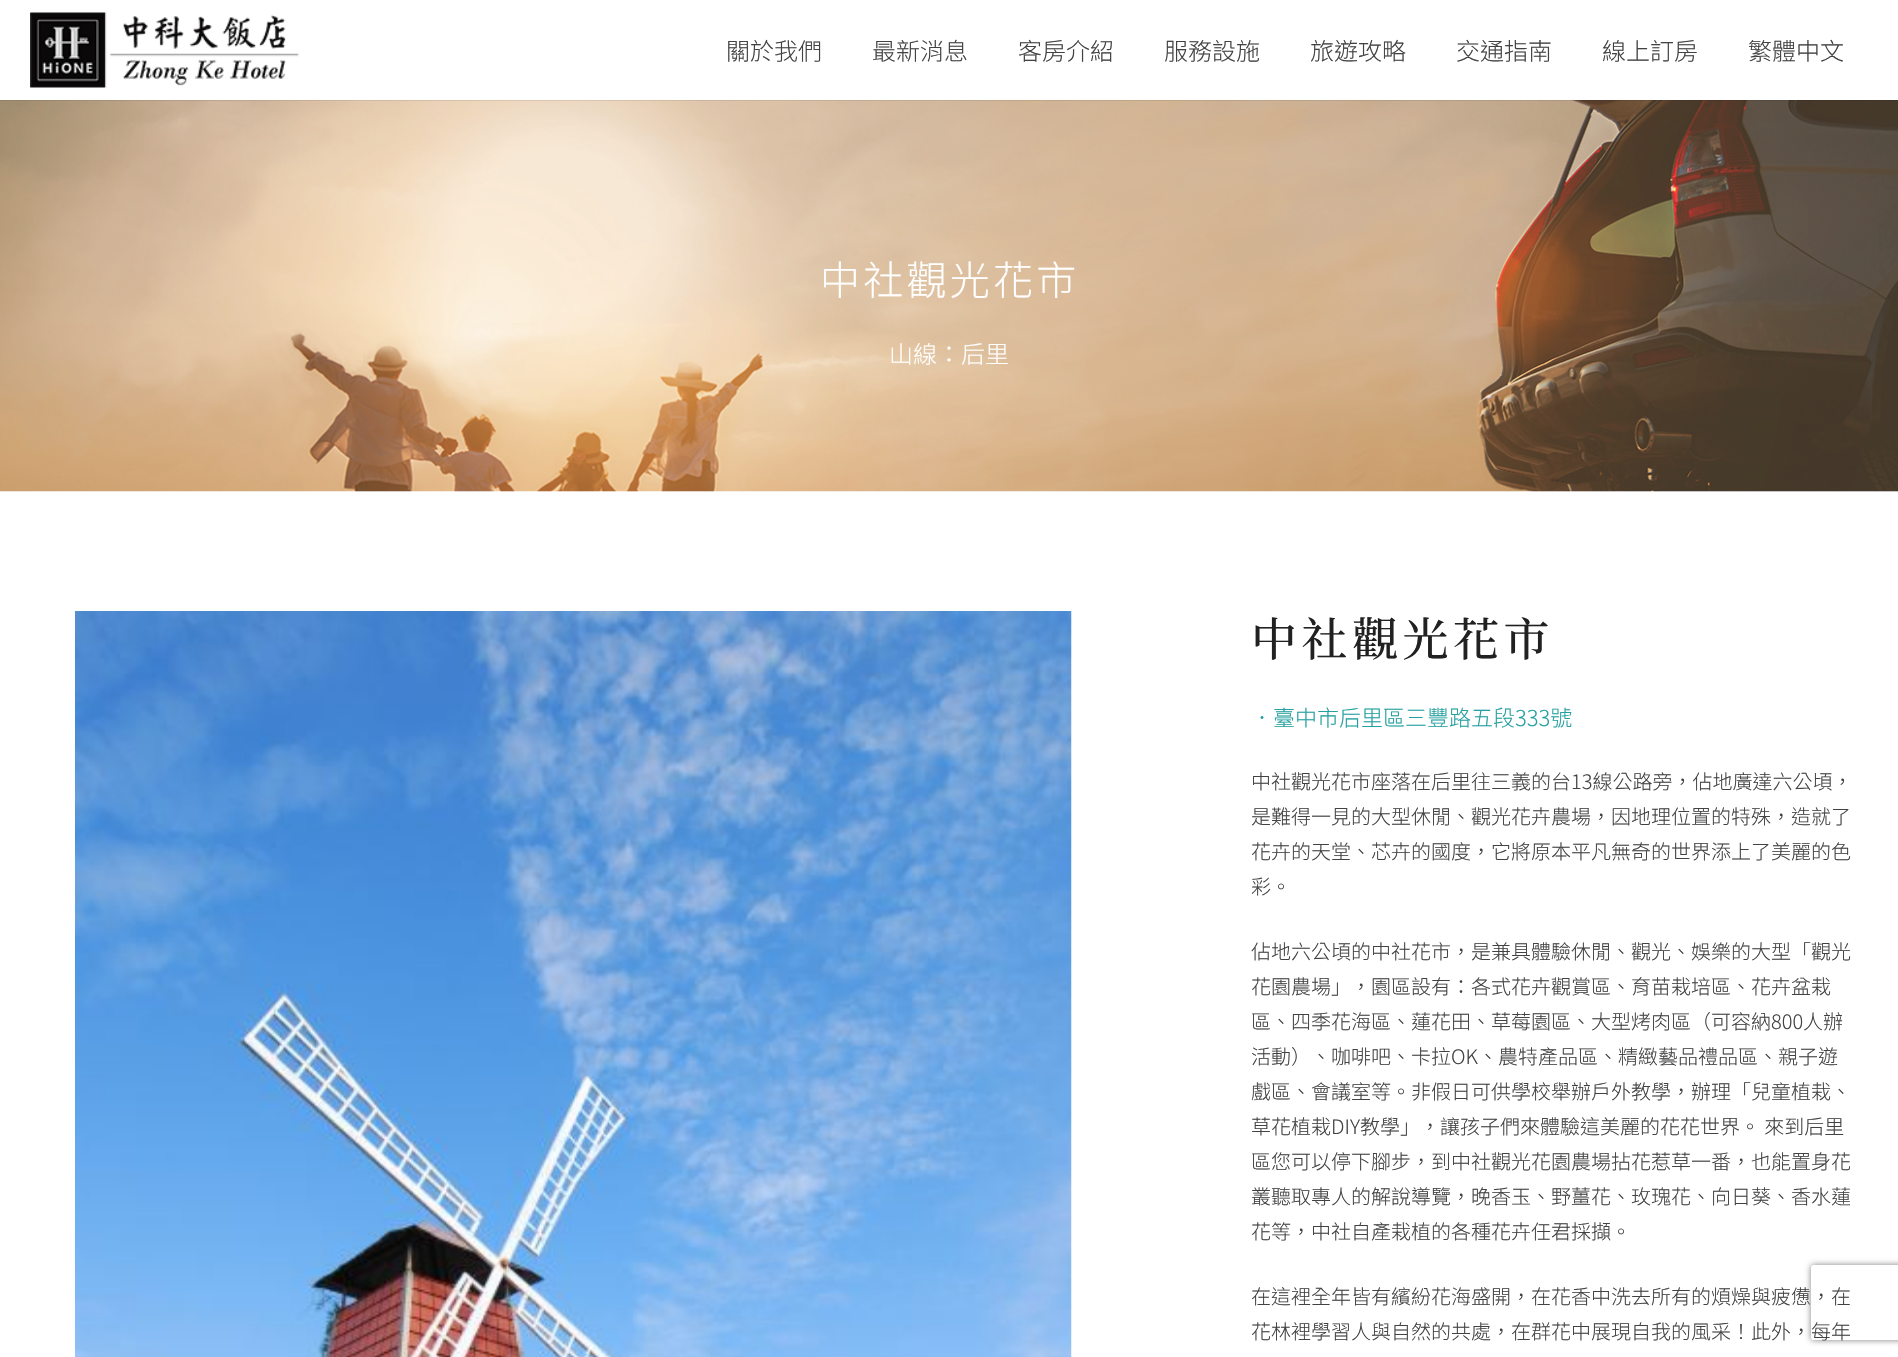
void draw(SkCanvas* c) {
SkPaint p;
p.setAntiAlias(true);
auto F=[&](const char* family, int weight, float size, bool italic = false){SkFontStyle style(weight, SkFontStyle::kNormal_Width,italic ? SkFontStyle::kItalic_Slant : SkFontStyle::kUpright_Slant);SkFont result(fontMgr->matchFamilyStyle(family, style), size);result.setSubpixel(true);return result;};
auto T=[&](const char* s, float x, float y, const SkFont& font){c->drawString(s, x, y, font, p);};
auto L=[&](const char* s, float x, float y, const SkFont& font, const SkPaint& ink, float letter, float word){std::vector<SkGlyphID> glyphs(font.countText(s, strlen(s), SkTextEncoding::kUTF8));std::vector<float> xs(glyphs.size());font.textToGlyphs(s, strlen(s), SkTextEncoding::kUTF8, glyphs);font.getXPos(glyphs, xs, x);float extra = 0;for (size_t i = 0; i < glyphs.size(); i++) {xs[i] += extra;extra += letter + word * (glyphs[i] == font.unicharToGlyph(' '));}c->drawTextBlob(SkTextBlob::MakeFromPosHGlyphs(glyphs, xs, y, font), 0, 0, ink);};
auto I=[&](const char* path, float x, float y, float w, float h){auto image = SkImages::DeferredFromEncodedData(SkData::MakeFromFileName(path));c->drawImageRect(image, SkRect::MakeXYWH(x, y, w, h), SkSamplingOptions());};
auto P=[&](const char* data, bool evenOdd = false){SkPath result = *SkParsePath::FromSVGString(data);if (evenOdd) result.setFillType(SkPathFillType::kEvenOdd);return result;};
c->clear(0xffffffff);
I("2.png",0,100,1898,392);
p.setColor(0x14000000);
c->drawPath(P("M0 100v1h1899v-100v99z"),p);
I("1.png",30,12,269,76);
auto f1 = F("Noto Sans TC",300,24);
p.setColor(0xff424242);
T("關於我們",726,60,f1);
T("最新消息",872,60,f1);
T("客房介紹",1018,60,f1);
T("服務設施",1164,60,f1);
T("旅遊攻略",1310,60,f1);
T("交通指南",1456,60,f1);
T("線上訂房",1602,60,f1);
T("繁體中文",1748,60,f1);
auto f2 = F("Noto Sans TC",300,40);
p.setColor(0xffffffff);
L("中社觀光花市",820,295,f2,p,3.25,0);
T("山線：后里",889,363,f1);
I("3.png",75,611,997,746);
auto f3 = F("Noto Serif TC",500,46);
p.setColor(0xff212121);
L("中社觀光花市",1251,656,f3,p,4.5,0);
auto f4 = F("Noto Sans TC",300,22);
p.setColor(0xff24a0a0);
T("．臺中市后里區三豐路五段333號",1251,726,f4);
auto f5 = F("Noto Sans TC",300,20);
p.setColor(0xff424242);
T("中社觀光花市座落在后里往三義的台13線公路旁，佔地廣達六公頃，",1251,789,f5);
T("是難得一見的大型休閒、觀光花卉農場，因地理位置的特殊，造就了",1251,824,f5);
T("花卉的天堂、芯卉的國度，它將原本平凡無奇的世界添上了美麗的色",1251,859,f5);
T("彩。",1251,894,f5);
T("佔地六公頃的中社花市，是兼具體驗休閒、觀光、娛樂的大型「觀光",1251,959,f5);
T("花園農場」，園區設有：各式花卉觀賞區、育苗栽培區、花卉盆栽",1251,994,f5);
T("區、四季花海區、蓮花田、草莓園區、大型烤肉區（可容納800人辦",1251,1029,f5);
T("活動）、咖啡吧、卡拉OK、農特產品區、精緻藝品禮品區、親子遊",1251,1064,f5);
T("戲區、會議室等。非假日可供學校舉辦戶外教學，辦理「兒童植栽、",1251,1099,f5);
T("草花植栽DIY教學」，讓孩子們來體驗這美麗的花花世界。 來到后里",1251,1134,f5);
T("區您可以停下腳步，到中社觀光花園農場拈花惹草一番，也能置身花",1251,1169,f5);
T("叢聽取專人的解說導覽，晚香玉、野薑花、玫瑰花、向日葵、香水蓮",1251,1204,f5);
T("花等，中社自產栽植的各種花卉任君採擷。",1251,1239,f5);
T("在這裡全年皆有繽紛花海盛開，在花香中洗去所有的煩燥與疲憊，在",1251,1304,f5);
T("花林裡學習人與自然的共處，在群花中展現自我的風采！此外，每年",1251,1339,f5);
c->save();
c->clipPath(P("M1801 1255h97v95h-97zm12.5 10h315c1.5 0 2.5 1 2.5 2.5v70c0 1.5-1 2.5-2.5 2.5h-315c-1.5 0-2.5-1-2.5-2.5v-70c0-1.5 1-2.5 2.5-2.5z",true),true);
p.setColor(0xff808080);
p.setMaskFilter(SkMaskFilter::MakeBlur(kNormal_SkBlurStyle, 3));
c->drawRoundRect(SkRect::MakeXYWH(1811,1265,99,75),2.5,2.5,p);
p.setMaskFilter(nullptr);
c->restore();
}
